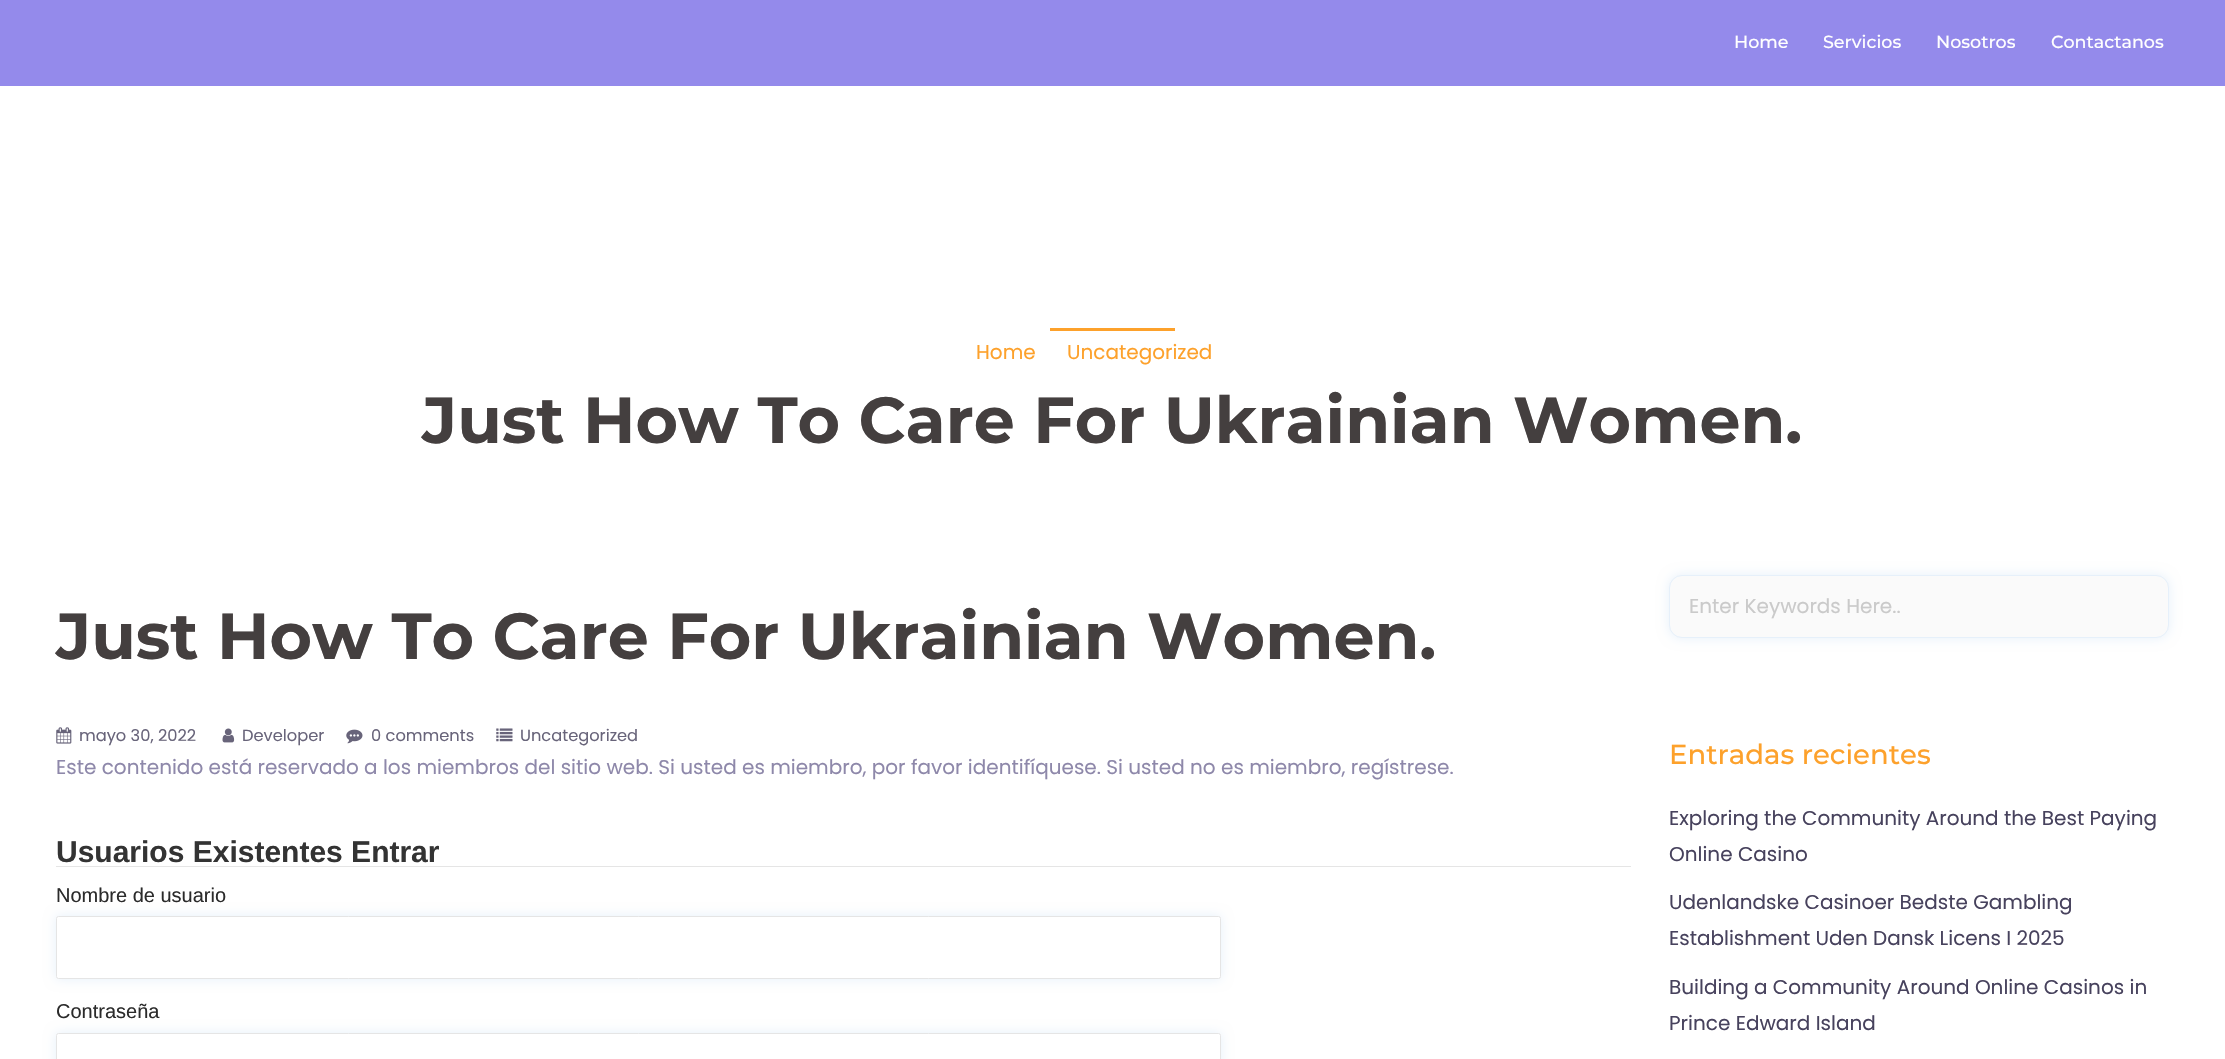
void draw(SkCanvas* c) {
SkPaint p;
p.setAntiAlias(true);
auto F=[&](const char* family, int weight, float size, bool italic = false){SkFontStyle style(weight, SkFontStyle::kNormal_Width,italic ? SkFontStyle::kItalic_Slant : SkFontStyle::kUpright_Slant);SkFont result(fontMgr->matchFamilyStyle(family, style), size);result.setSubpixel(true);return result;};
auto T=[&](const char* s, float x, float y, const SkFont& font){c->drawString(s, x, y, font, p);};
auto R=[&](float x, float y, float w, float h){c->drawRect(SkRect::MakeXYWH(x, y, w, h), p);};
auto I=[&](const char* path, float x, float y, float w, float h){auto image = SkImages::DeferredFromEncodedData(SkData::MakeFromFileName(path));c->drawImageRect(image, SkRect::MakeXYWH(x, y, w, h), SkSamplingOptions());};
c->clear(0xffffffff);
p.setColor(0xff948aeb);
R(0,0,2225,86);
auto f1 = F("Montserrat",500,17.5);
p.setColor(0xffffffff);
T("Home",1734,48,f1);
T("Servicios",1823,48,f1);
T("Nosotros",1936,48,f1);
T("Contactanos",2051,48,f1);
p.setColor(0xfffda12b);
R(1050,328,125,3);
auto f2 = F("Poppins",400,20);
T("Home",976,359,f2);
T("Uncategorized",1067,359,f2);
auto f3 = F("Montserrat",700,65);
p.setColor(0xff443f3f);
T("Just How To Care For Ukrainian Women.",422,443,f3);
T("Just How To Care For Ukrainian Women.",56,659,f3);
I("1.png",56,727,16,17);
auto f4 = F("Poppins",400,16.25);
p.setColor(0xff68647a);
T("mayo 30, 2022",79,741,f4);
I("2.png",222,728,13,15);
T("Developer",242,741,f4);
I("3.png",346,729,17,15);
T("0 comments",371,741,f4);
I("4.png",496,728,17,14);
T("Uncategorized",520,741,f4);
p.setColor(0xff8e88aa);
T("Este contenido está reservado a los miembros del sitio web. Si usted es miembro, por favor identifíquese. Si usted no es miembro, regístrese.",56,774,f2);
p.setColor(0xffe5e5e5);
R(56,866,1575,1);
auto f5 = F("Liberation Sans",700,30);
p.setColor(0xff333333);
T("Usuarios Existentes Entrar",56,862,f5);
auto f6 = F("Liberation Sans",400,20);
p.setColor(0xff2b2b2b);
T("Nombre de usuario",56,902,f6);
p.setColor(0xffe6f0fa);
p.setMaskFilter(SkMaskFilter::MakeBlur(kNormal_SkBlurStyle, 6));
c->drawRoundRect(SkRect::MakeXYWH(56,916,1165,63),2.5,2.5,p);
p.setMaskFilter(nullptr);
p.setColor(0xffffffff);
c->drawRoundRect(SkRect::MakeXYWH(56.5,916.5,1164,62),2,2,p);
p.setStroke(true);
p.setStrokeWidth(1);
p.setColor(0xffe5e5e5);
c->drawRoundRect(SkRect::MakeXYWH(56.5,916.5,1164,62),2,2,p);
p.setStroke(false);
p.setColor(0xff2b2b2b);
T("Contraseña",56,1018,f6);
p.setColor(0xffe6f0fa);
p.setMaskFilter(SkMaskFilter::MakeBlur(kNormal_SkBlurStyle, 6));
c->drawRoundRect(SkRect::MakeXYWH(56,1033,1165,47),2.5,2.5,p);
p.setMaskFilter(nullptr);
p.setColor(0xffffffff);
c->drawRoundRect(SkRect::MakeXYWH(56.5,1033.5,1164,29),2,2,p);
p.setStroke(true);
p.setColor(0xffe5e5e5);
c->drawRoundRect(SkRect::MakeXYWH(56.5,1033.5,1164,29),2,2,p);
p.setStroke(false);
p.setColor(0xffe6f0fa);
p.setMaskFilter(SkMaskFilter::MakeBlur(kNormal_SkBlurStyle, 6));
c->drawRoundRect(SkRect::MakeXYWH(1669,575,500,63),13,13,p);
p.setMaskFilter(nullptr);
p.setColor(0xfffafafa);
c->drawRoundRect(SkRect::MakeXYWH(1669.5,575.5,499,62),12.5,12.5,p);
p.setStroke(true);
p.setColor(0xffe6f0fa);
c->drawRoundRect(SkRect::MakeXYWH(1669.5,575.5,499,62),12.5,12.5,p);
p.setStroke(false);
p.setColor(0xffcacaca);
T("Enter Keywords Here..",1689,613,f2);
auto f7 = F("Montserrat",500,27.5);
p.setColor(0xfffda12b);
T("Entradas recientes",1669,764,f7);
p.setColor(0xff47425d);
T("Exploring the Community Around the Best Paying",1669,825,f2);
T("Online Casino",1669,861,f2);
T("Udenlandske Casinoer Bedste Gambling",1669,909,f2);
T("Establishment Uden Dansk Licens I 2025",1669,945,f2);
T("Building a Community Around Online Casinos in",1669,994,f2);
T("Prince Edward Island",1669,1030,f2);
}
